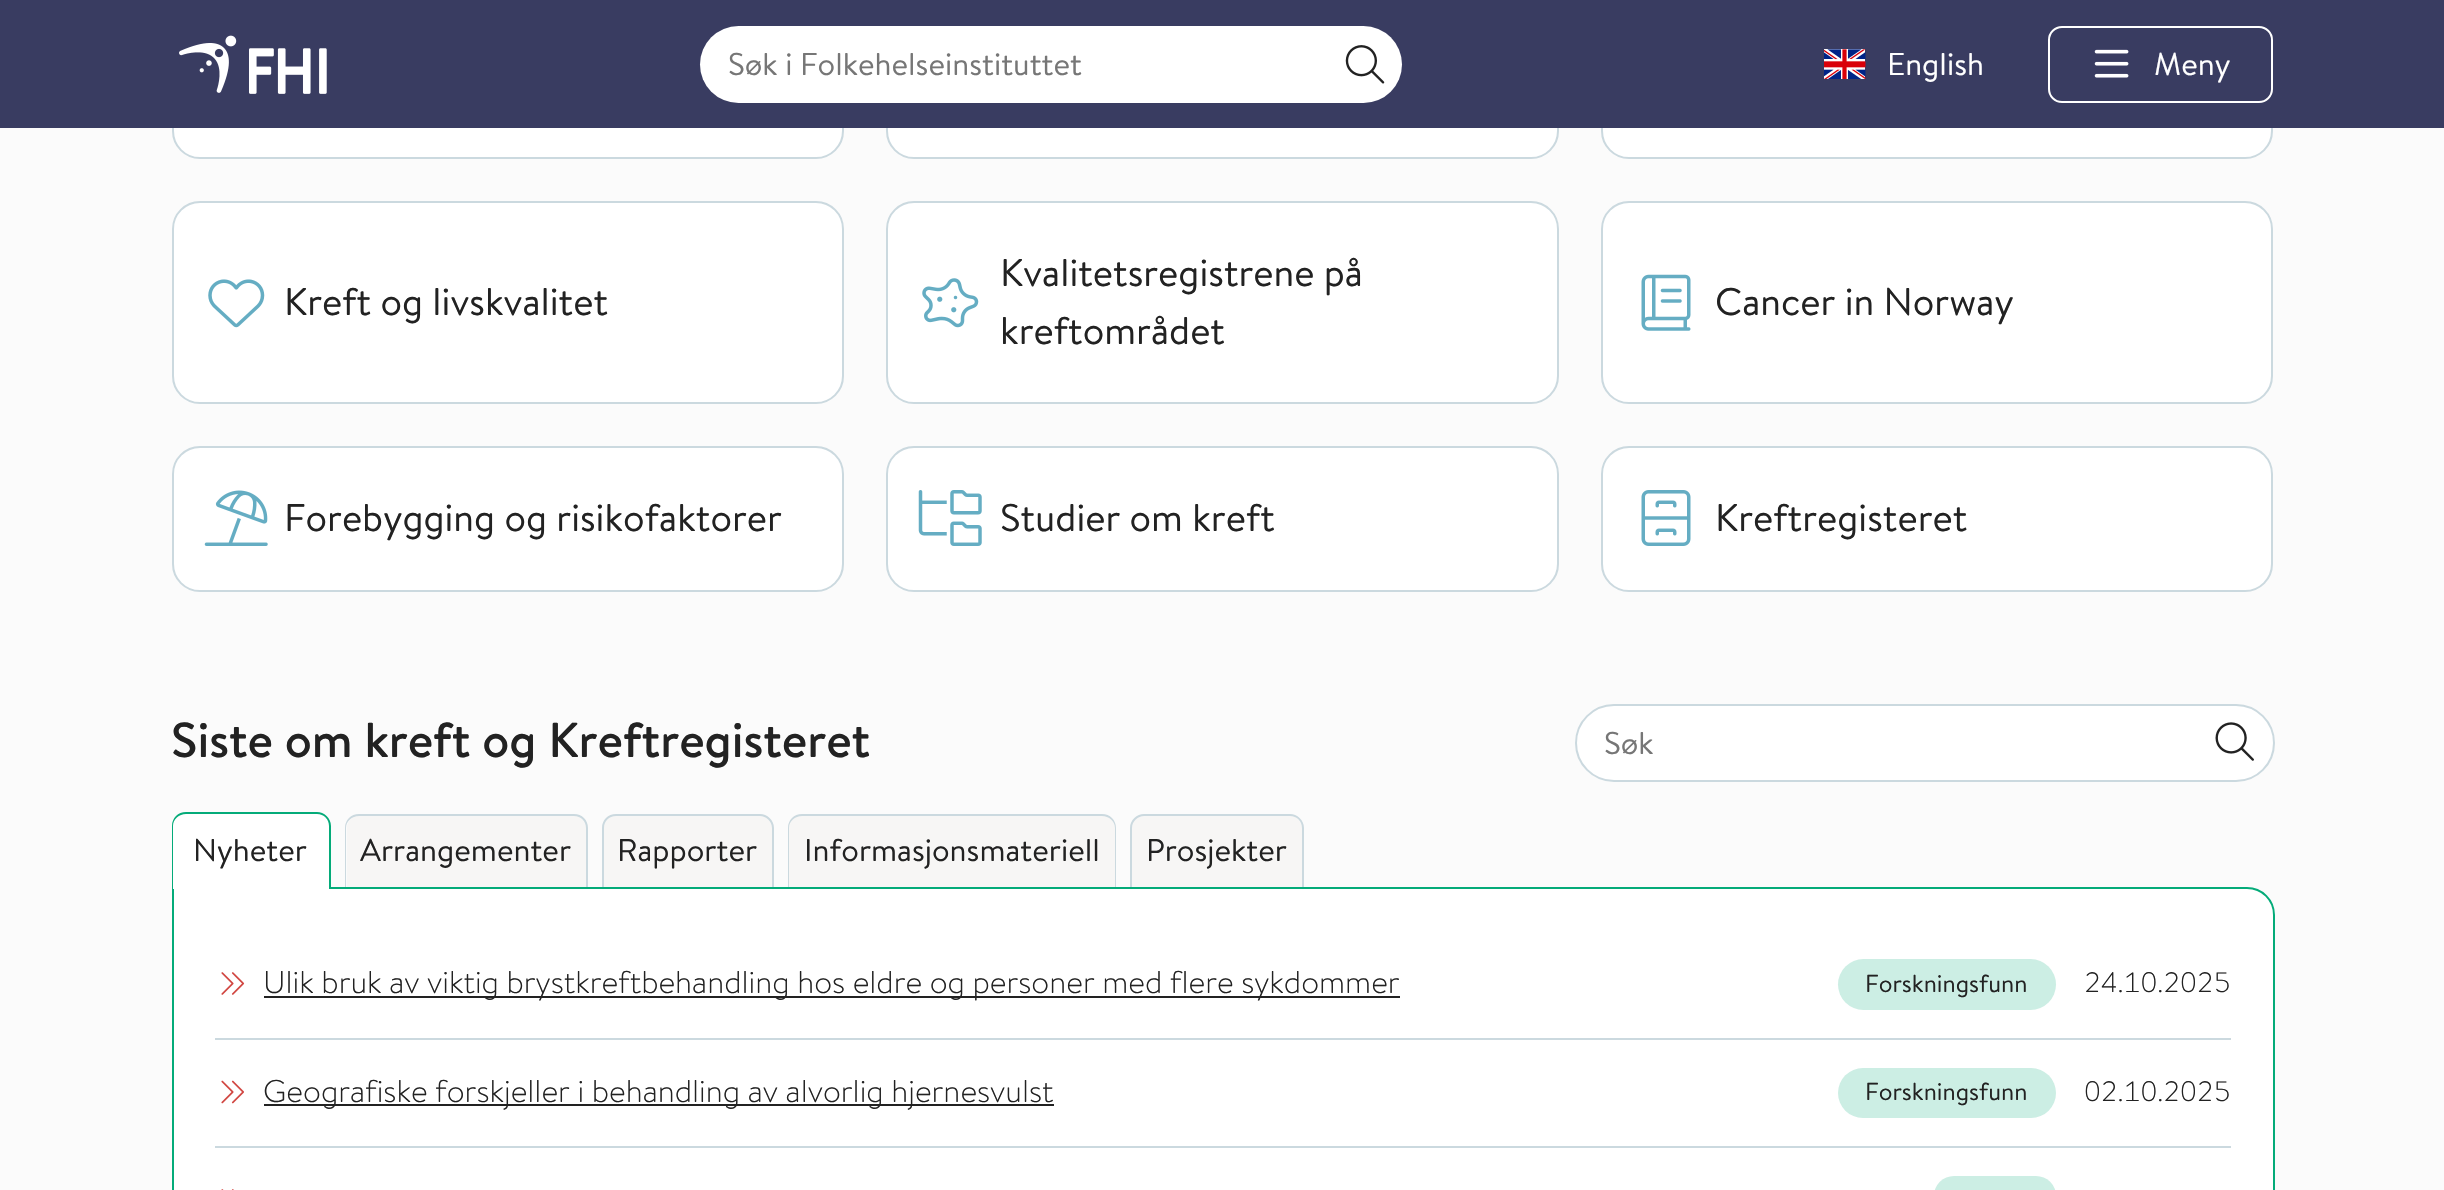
void draw(SkCanvas* c) {
SkPaint p;
p.setAntiAlias(true);
auto F=[&](const char* family, int weight, float size, bool italic = false){SkFontStyle style(weight, SkFontStyle::kNormal_Width,italic ? SkFontStyle::kItalic_Slant : SkFontStyle::kUpright_Slant);SkFont result(fontMgr->matchFamilyStyle(family, style), size);result.setSubpixel(true);return result;};
auto T=[&](const char* s, float x, float y, const SkFont& font){c->drawString(s, x, y, font, p);};
auto R=[&](float x, float y, float w, float h){c->drawRect(SkRect::MakeXYWH(x, y, w, h), p);};
auto Q=[&](float x, float y, float w, float h, float radius){c->drawRoundRect(SkRect::MakeXYWH(x, y, w, h), radius, radius, p);};
auto I=[&](const char* path, float x, float y, float w, float h){auto image = SkImages::DeferredFromEncodedData(SkData::MakeFromFileName(path));c->drawImageRect(image, SkRect::MakeXYWH(x, y, w, h), SkSamplingOptions());};
auto P=[&](const char* data, bool evenOdd = false){SkPath result = *SkParsePath::FromSVGString(data);if (evenOdd) result.setFillType(SkPathFillType::kEvenOdd);return result;};
c->clear(0xfffbfbfb);
p.setColor(0xffffffff);
c->drawRoundRect(SkRect::MakeXYWH(173,15,670,143),27,27,p);
p.setStroke(true);
p.setStrokeWidth(2);
p.setColor(0xffcbd9df);
c->drawRoundRect(SkRect::MakeXYWH(173,15,670,143),27,27,p);
p.setStroke(false);
p.setColor(0xffffffff);
c->drawRoundRect(SkRect::MakeXYWH(887,15,671,143),27,27,p);
p.setStroke(true);
p.setColor(0xffcbd9df);
c->drawRoundRect(SkRect::MakeXYWH(887,15,671,143),27,27,p);
p.setStroke(false);
p.setColor(0xffffffff);
c->drawRoundRect(SkRect::MakeXYWH(1602,15,670,143),27,27,p);
p.setStroke(true);
p.setColor(0xffcbd9df);
c->drawRoundRect(SkRect::MakeXYWH(1602,15,670,143),27,27,p);
p.setStroke(false);
p.setColor(0xff393c61);
R(0,0,2444,128);
I("1.png",179,35,148,59);
p.setColor(0xffffffff);
Q(700,26,702,77,38.5);
auto f1 = F("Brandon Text",400,31.5);
p.setColor(0xff767676);
T("Søk i Folkehelseinstituttet",728,75,f1);
I("2.png",1345,45,40,39);
I("3.png",1824,49,42,30);
p.setColor(0xffffffff);
T("English",1887,75,f1);
p.setStroke(true);
c->drawRoundRect(SkRect::MakeXYWH(2049,27,223,75),13,13,p);
I("4.png",2094,49,35,29);
p.setStroke(false);
T("Meny",2154,75,f1);
c->drawRoundRect(SkRect::MakeXYWH(173,202,670,201),27,27,p);
p.setStroke(true);
p.setColor(0xffcbd9df);
c->drawRoundRect(SkRect::MakeXYWH(173,202,670,201),27,27,p);
I("5.png",208,279,57,49);
auto f2 = F("Brandon Text",400,38.5);
p.setStroke(false);
p.setColor(0xff222222);
T("Kreft og livskvalitet",284,315,f2);
p.setColor(0xffffffff);
c->drawRoundRect(SkRect::MakeXYWH(887,202,671,201),27,27,p);
p.setStroke(true);
p.setColor(0xffcbd9df);
c->drawRoundRect(SkRect::MakeXYWH(887,202,671,201),27,27,p);
I("6.png",922,278,57,50);
p.setStroke(false);
p.setColor(0xff222222);
T("Kvalitetsregistrene på",1000,286,f2);
T("kreftområdet",1000,344,f2);
p.setColor(0xffffffff);
c->drawRoundRect(SkRect::MakeXYWH(1602,202,670,201),27,27,p);
p.setStroke(true);
p.setColor(0xffcbd9df);
c->drawRoundRect(SkRect::MakeXYWH(1602,202,670,201),27,27,p);
I("7.png",1641,274,50,57);
p.setStroke(false);
p.setColor(0xff222222);
T("Cancer in Norway",1715,315,f2);
p.setColor(0xffffffff);
c->drawRoundRect(SkRect::MakeXYWH(173,447,670,144),27,27,p);
p.setStroke(true);
p.setColor(0xffcbd9df);
c->drawRoundRect(SkRect::MakeXYWH(173,447,670,144),27,27,p);
I("8.png",204,490,64,56);
p.setStroke(false);
p.setColor(0xff222222);
T("Forebygging og risikofaktorer",284,531,f2);
p.setColor(0xffffffff);
c->drawRoundRect(SkRect::MakeXYWH(887,447,671,144),27,27,p);
p.setStroke(true);
p.setColor(0xffcbd9df);
c->drawRoundRect(SkRect::MakeXYWH(887,447,671,144),27,27,p);
I("9.png",918,490,64,56);
p.setStroke(false);
p.setColor(0xff222222);
T("Studier om kreft",1000,531,f2);
p.setColor(0xffffffff);
c->drawRoundRect(SkRect::MakeXYWH(1602,447,670,144),27,27,p);
p.setStroke(true);
p.setColor(0xffcbd9df);
c->drawRoundRect(SkRect::MakeXYWH(1602,447,670,144),27,27,p);
I("10.png",1641,490,50,56);
p.setStroke(false);
p.setColor(0xff222222);
T("Kreftregisteret",1715,531,f2);
auto f3 = F("Brandon Text",500,49);
T("Siste om kreft og Kreftregisteret",171,757,f3);
p.setColor(0xffffffff);
c->drawRoundRect(SkRect::MakeXYWH(1576,705,698,76),38,38,p);
p.setStroke(true);
p.setColor(0xffcbd9df);
c->drawRoundRect(SkRect::MakeXYWH(1576,705,698,76),38,38,p);
p.setStroke(false);
p.setColor(0xff767676);
T("Søk",1604,754,f1);
I("11.png",2215,722,39,39);
p.setColor(0xffffffff);
c->drawPath(P("M173 888h2074c15 0 27 12 27 27v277c0 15-12 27-27 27h-2047c-15 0-27-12-27-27z"),p);
p.setStroke(true);
p.setColor(0xff04ab79);
c->drawPath(P("M173 888h2074c15 0 27 12 27 27v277c0 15-12 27-27 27h-2047c-15 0-27-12-27-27z"),p);
p.setStroke(false);
p.setColor(0xffffffff);
c->drawPath(P("M185 814h132c6.5 0 12 5.5 12 12v63h-156v-63c0-6.5 5.5-12 12-12z"),p);
p.setColor(0xff04ab79);
c->drawPath(P("M186 812h131c7 0 14 6 14 14v63h-159v-63c0-8 6-14 14-14zm0 2h131c7 0 12 5 12 12v63h-156v-63c0-7 6-12 13-12z",true),p);
p.setColor(0xff222222);
T("Nyheter",193,861,f1);
p.setColor(0xfff7f6f5);
c->drawPath(P("M359 816h215c6.5 0 12 5.5 12 12v59h-239v-59c0-6.5 5.5-12 12-12z"),p);
p.setColor(0xffcbd9df);
c->drawPath(P("M359 814h215c8 0 14 6 14 14v59h-243v-59c0-8 6-14 14-14zm0 2h215c7 0 12 5 12 12v59h-240v-59c0-7 6-12 13-12z",true),p);
p.setColor(0xff222222);
T("Arrangementer",360,861,f1);
p.setColor(0xfff7f6f5);
c->drawPath(P("M616 816h144c6.5 0 12 5.5 12 12v59h-168v-59c0-6.5 5.5-12 12-12z"),p);
p.setColor(0xffcbd9df);
c->drawPath(P("M616 814h144c7 0 14 6 14 14v59h-172v-59c0-8 6-14 14-14zm0 2h144c6 0 12 5 12 12v59h-168v-59c0-7 5-12 12-12z",true),p);
p.setColor(0xff222222);
T("Rapporter",617,861,f1);
p.setColor(0xfff7f6f5);
c->drawPath(P("M801 816h302c6.5 0 12 5.5 12 12v59h-326v-59c0-6.5 5.5-12 12-12z"),p);
p.setColor(0xffcbd9df);
c->drawPath(P("M802 814h300c8 0 14 6 14 14v59h-328v-59c0-8 6-14 14-14zm0 2h300c7 0 13 5 13 12v59h-326v-59c0-7 6-12 13-12z",true),p);
p.setColor(0xff222222);
T("Informasjonsmateriell",804,861,f1);
p.setColor(0xfff7f6f5);
c->drawPath(P("M1144 816h146c6.5 0 12 5.5 12 12v59h-170v-59c0-6.5 5.5-12 12-12z"),p);
p.setColor(0xffcbd9df);
c->drawPath(P("M1144 814h146c7 0 14 6 14 14v59h-174v-59c0-8 7-14 14-14zm0 2h146c7 0 12 5 12 12v59h-170v-59c0-7 6-12 12-12z",true),p);
p.setColor(0xff222222);
T("Prosjekter",1146,861,f1);
p.setColor(0xffcbd9df);
R(215,1038,2016,2);
I("12.png",221,972,24,23);
p.setColor(0xff222222);
R(264,996,1136,2);
auto f4 = F("Brandon Text",300,31.5);
T("Ulik bruk av viktig brystkreftbehandling hos eldre og personer med flere sykdommer",263,993,f4);
p.setColor(0xffcceee4);
Q(1838,959,218,51,25.5);
auto f5 = F("Brandon Text",400,24.5);
p.setColor(0xff222222);
T("Forskningsfunn",1865,992,f5);
auto f6 = F("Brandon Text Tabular",300,28);
T("24.10.2025",2084,992,f6);
p.setColor(0xffcbd9df);
R(215,1146,2016,2);
I("13.png",221,1080,23,24);
p.setColor(0xff222222);
R(264,1104,790,2);
T("Geografiske forskjeller i behandling av alvorlig hjernesvulst",263,1102,f4);
p.setColor(0xffcceee4);
Q(1838,1068,218,50,25);
p.setColor(0xff222222);
T("Forskningsfunn",1865,1100,f5);
T("02.10.2025",2084,1101,f6);
I("14.png",221,1189,13,1);
p.setColor(0xffcceee4);
Q(1934,1176,122,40,25.5);
}
